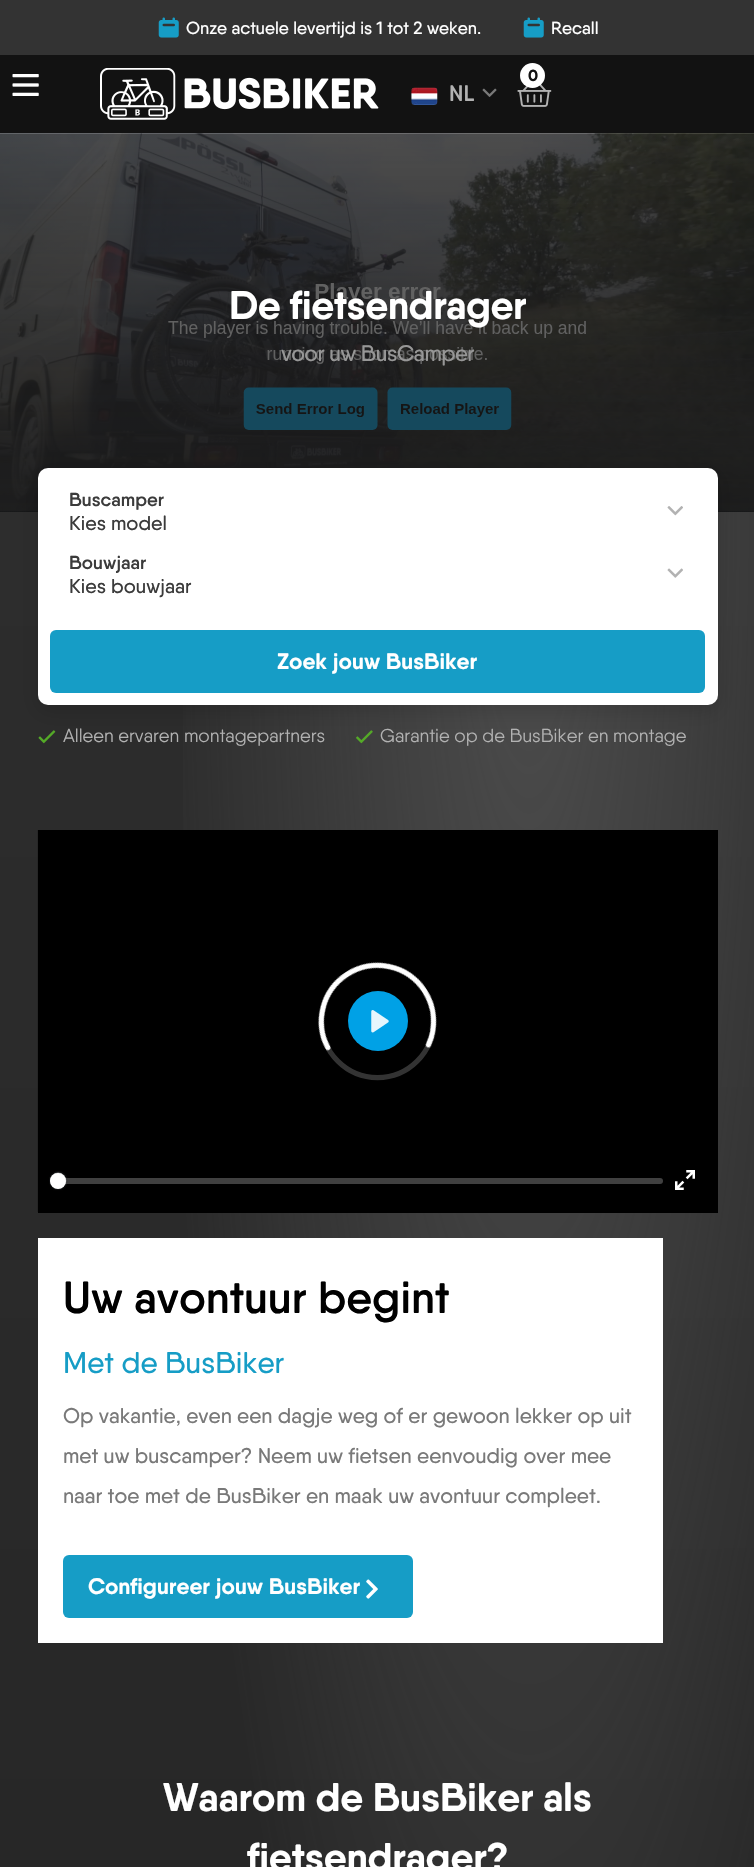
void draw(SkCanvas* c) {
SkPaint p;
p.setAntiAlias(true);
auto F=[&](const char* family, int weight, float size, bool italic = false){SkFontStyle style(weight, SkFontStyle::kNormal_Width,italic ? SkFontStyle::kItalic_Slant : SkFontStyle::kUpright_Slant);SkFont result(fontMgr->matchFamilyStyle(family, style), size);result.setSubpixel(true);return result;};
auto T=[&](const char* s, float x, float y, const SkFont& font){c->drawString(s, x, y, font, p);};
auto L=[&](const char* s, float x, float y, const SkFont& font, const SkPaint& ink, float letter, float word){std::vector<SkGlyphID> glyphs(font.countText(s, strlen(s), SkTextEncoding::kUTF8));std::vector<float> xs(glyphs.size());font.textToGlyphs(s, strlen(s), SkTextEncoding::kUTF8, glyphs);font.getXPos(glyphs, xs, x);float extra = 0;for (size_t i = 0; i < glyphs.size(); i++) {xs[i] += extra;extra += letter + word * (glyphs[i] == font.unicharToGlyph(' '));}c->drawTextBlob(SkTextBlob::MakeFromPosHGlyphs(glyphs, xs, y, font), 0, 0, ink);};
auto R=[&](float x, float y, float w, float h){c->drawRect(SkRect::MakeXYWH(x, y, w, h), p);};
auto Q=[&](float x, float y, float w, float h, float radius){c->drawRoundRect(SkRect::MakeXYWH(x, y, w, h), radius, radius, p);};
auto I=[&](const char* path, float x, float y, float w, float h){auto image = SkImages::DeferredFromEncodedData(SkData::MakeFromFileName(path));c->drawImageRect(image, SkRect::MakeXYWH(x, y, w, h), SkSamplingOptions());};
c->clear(0xff333333);
I("1.png",158,17,21,21);
auto f1 = F("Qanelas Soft",500,17.5);
p.setColor(0xffffffff);
T("Onze actuele levertijd is 1 tot 2 weken.",186,34,f1);
I("1.png",523,17,21,21);
T("Recall",551,34,f1);
p.setColor(0xff121212);
R(0,55,754,78);
p.setColor(0xff3b3b3b);
R(0,133,754,1);
I("2.png",12,74,27,22);
I("3.png",100,68,279,52);
I("4.png",517,84,35,23);
p.setColor(0xffffffff);
c->drawCircle(532.5,75.5,12.5,p);
auto f2 = F("Qanelas Soft",700,16);
p.setColor(0xff121212);
T("0",528,81,f2);
I("5.png",411,87,27,18);
auto f3 = F("Qanelas Soft",600,22.5);
p.setColor(0xffb2b2b2);
T("NL",449,101,f3);
I("6.png",482,88,15,9);
{
const SkColor colors[] = {0xff2d2d2d,0xff212121};
const float stops[] = {0,1};
const SkPoint ends[] = {{377,511}, {378,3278}};
p.setShader(SkGradientShader::MakeLinear(ends, colors, stops, 2, SkTileMode::kClamp));
p.setAlpha(255);
}
R(0,511,754,1356);
{
const SkColor colors[] = {0xff4d4d4d,0x004d4d4d};
const float stops[] = {0,.5};
SkMatrix m = SkMatrix::Translate(529,449).preScale(747,4000);
p.setShader(SkGradientShader::MakeRadial({0, 0}, 1, colors, stops, 2, SkTileMode::kClamp, 0, &m));
p.setAlpha(255);
}
R(183,511,571,1356);
I("7.png",0,133,754,379);
I("8.png",0,134,754,378);
auto f4 = F("Qanelas Soft",700,40);
p.setShader(nullptr);
p.setColor(0xffffffff);
L("De fietsendrager",229,319,f4,p,-.5,0);
auto f5 = F("Qanelas Soft",500,22.5);
p.setColor(0xff979797);
L("voor uw BusCamper",281,361,f5,p,-.5,0);
I("11.png",38,730,18,14);
I("12.png",356,730,17,14);
p.setColor(0x26000000);
p.setMaskFilter(SkMaskFilter::MakeBlur(kNormal_SkBlurStyle, 9.5));
c->drawRoundRect(SkRect::MakeXYWH(38,474,680,237),10,10,p);
p.setMaskFilter(nullptr);
p.setColor(0xffffffff);
Q(38,468,680,237,10);
auto f6 = F("Qanelas Soft",600,18.75);
p.setColor(0xff3b3b3b);
T("Buscamper",69,506,f6);
I("9.png",667,506,16,10);
auto f7 = F("Qanelas Soft",500,20);
T("Kies model",69,530,f7);
T("Bouwjaar",69,569,f6);
I("10.png",667,568,16,10);
T("Kies bouwjaar",69,593,f7);
p.setColor(0xff169dc6);
Q(50,630,655,63,6);
auto f8 = F("Qanelas Soft",700,22.5);
p.setColor(0xffffffff);
T("Zoek jouw BusBiker",277,669,f8);
auto f9 = F("Qanelas Soft",400,18.75);
p.setColor(0xffb2b2b2);
T("Alleen ervaren montagepartners",63,742,f9);
T("Garantie op de BusBiker en montage",380,742,f9);
p.setColor(0xff000000);
R(38,830,680,383);
I("13.png",37,830,400,382);
p.setColor(0xff00a1e6);
c->drawCircle(378,1021,30,p);
I("14.png",371,1010,18,23);
{
const SkColor colors[] = {0x00000000,0xbf000000};
const float stops[] = {0,1};
const SkPoint ends[] = {{378,1116}, {378,1213}};
p.setShader(SkGradientShader::MakeLinear(ends, colors, stops, 2, SkTileMode::kClamp));
p.setAlpha(255);
}
R(49,1172,18,18);
p.setShader(nullptr);
p.setColor(0x40ffffff);
Q(50,1178,613,6,3);
p.setStroke(true);
p.setStrokeWidth(1);
p.setColor(0x3323282f);
c->drawCircle(58.5,1180.5,9,p);
p.setStroke(false);
p.setColor(0x2623282f);
p.setMaskFilter(SkMaskFilter::MakeBlur(kNormal_SkBlurStyle, .5));
c->drawRoundRect(SkRect::MakeXYWH(50,1174,16,16),8,8,p);
p.setMaskFilter(nullptr);
p.setColor(0xffffffff);
c->drawCircle(58,1181,8,p);
I("15.png",675,1170,20,20);
R(38,1238,625,405);
auto f10 = F("Qanelas Soft",600,45);
p.setColor(0xff000000);
T("Uw avontuur begint",63,1313,f10);
auto f11 = F("Qanelas Soft",500,30);
p.setColor(0xff169dc6);
T("Met de BusBiker",63,1373,f11);
auto f12 = F("Qanelas Soft",500,21.25);
p.setColor(0xff797979);
T("Op vakantie, even een dagje weg of er gewoon lekker op uit",63,1423,f12);
T("met uw buscamper? Neem uw fietsen eenvoudig over mee",63,1463,f12);
T("naar toe met de BusBiker en maak uw avontuur compleet.",63,1503,f12);
p.setColor(0xff169dc6);
Q(63,1555,350,63,6);
p.setColor(0xffffffff);
T("Configureer jouw BusBiker",88,1594,f8);
I("16.png",366,1579,12,20);
L("Waarom de BusBiker als",163,1811,f4,p,-.25,0);
L("fietsendrager?",247,1871,f4,p,-.25,0);
}
